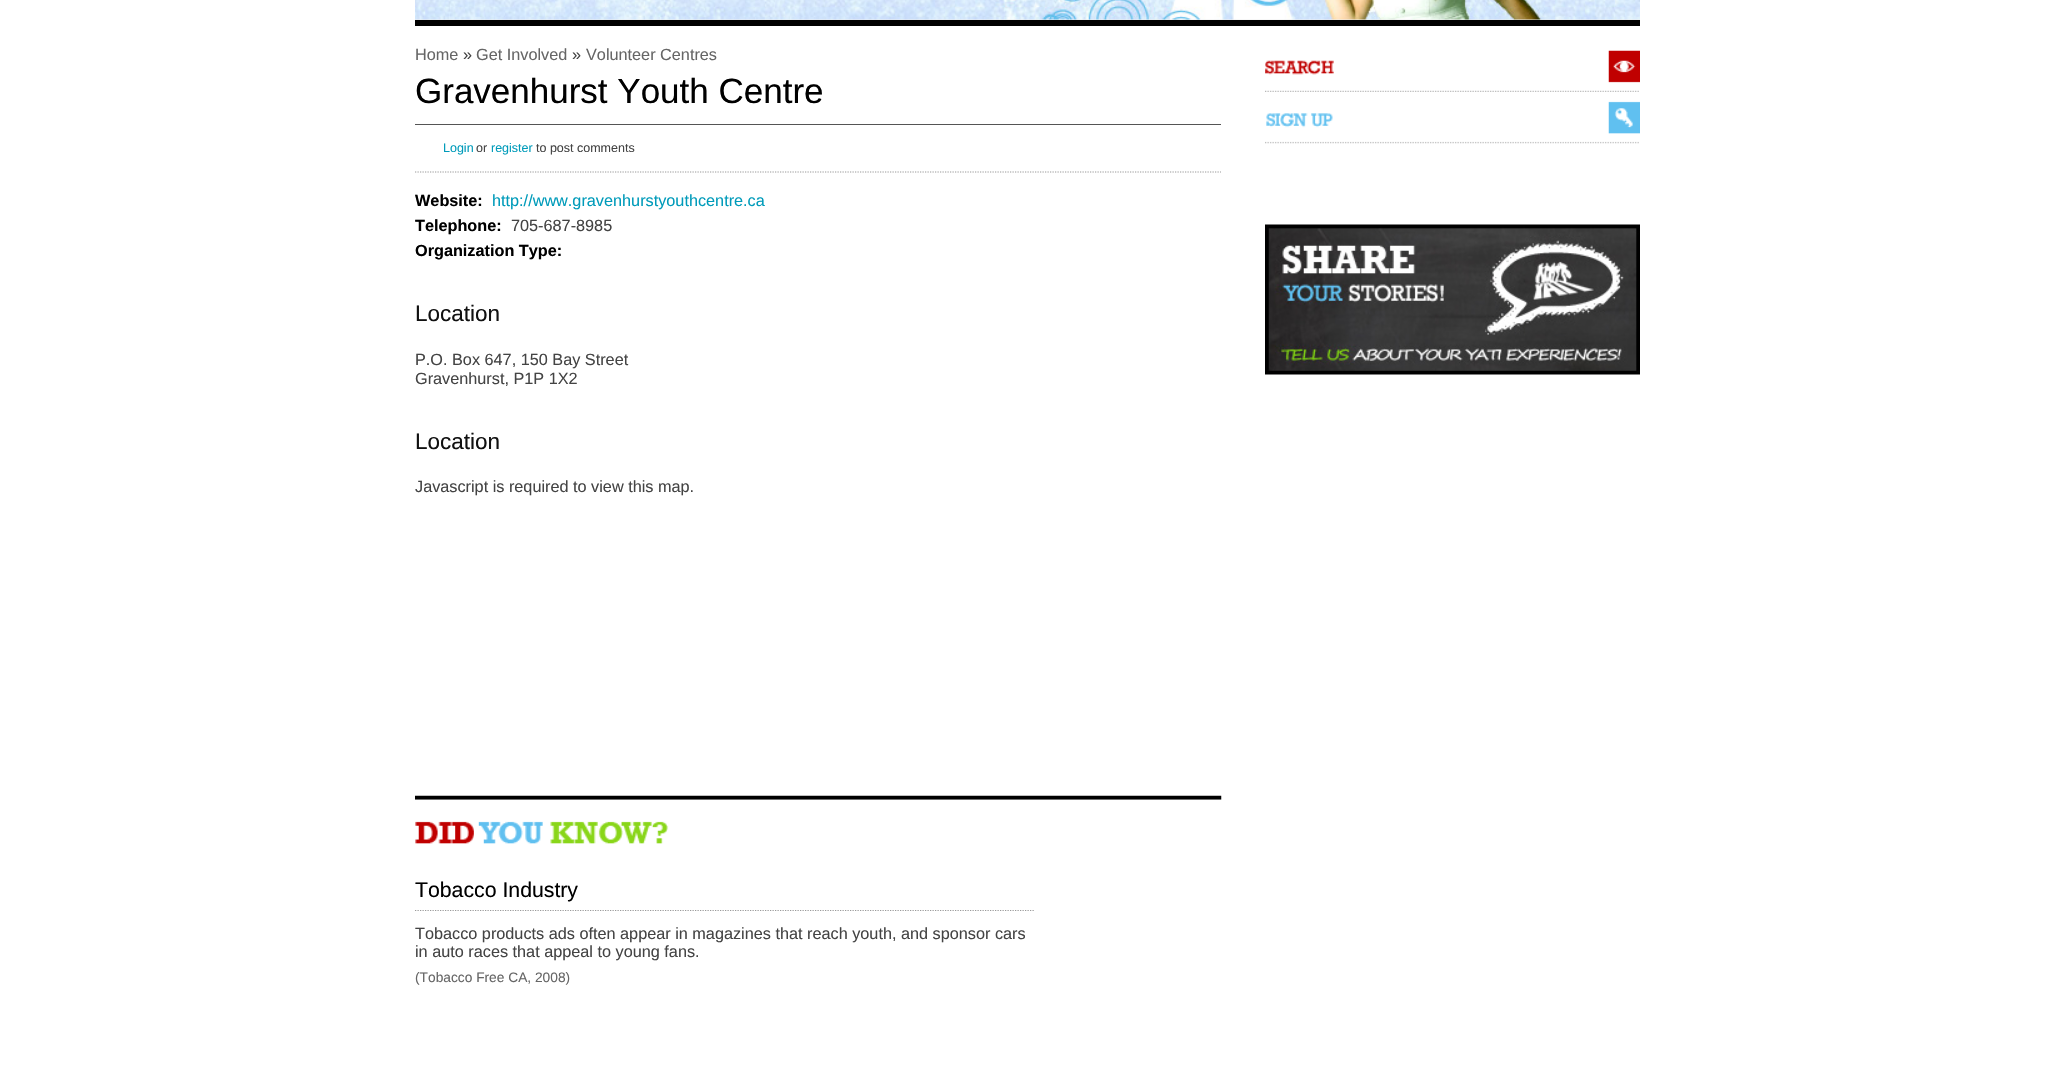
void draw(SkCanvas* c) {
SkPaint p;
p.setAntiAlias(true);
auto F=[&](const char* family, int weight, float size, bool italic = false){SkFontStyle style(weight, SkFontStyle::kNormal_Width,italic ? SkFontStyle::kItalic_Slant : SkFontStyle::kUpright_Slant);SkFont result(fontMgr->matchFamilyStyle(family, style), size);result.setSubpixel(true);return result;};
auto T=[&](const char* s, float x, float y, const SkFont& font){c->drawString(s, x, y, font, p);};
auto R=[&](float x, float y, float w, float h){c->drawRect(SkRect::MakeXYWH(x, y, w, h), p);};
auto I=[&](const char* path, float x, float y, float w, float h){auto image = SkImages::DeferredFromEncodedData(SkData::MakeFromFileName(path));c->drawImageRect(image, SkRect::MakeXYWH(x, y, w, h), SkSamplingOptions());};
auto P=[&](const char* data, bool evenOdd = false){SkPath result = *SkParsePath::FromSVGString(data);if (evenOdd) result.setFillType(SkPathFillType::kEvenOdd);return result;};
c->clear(0xffffffff);
p.setColor(0xffeeeeee);
R(415,19,1225,1);
p.setColor(0xff000000);
R(415,20,1225,6);
I("1.png",415,0,1225,20);
auto f1 = F("Liberation Sans",400,16.25);
p.setColor(0xff666666);
T("Home",415,60,f1);
p.setColor(0xff444444);
T("»",463,60,f1);
p.setColor(0xff666666);
T("Get Involved",476,60,f1);
p.setColor(0xff444444);
T("»",572,60,f1);
p.setColor(0xff666666);
T("Volunteer Centres",586,60,f1);
auto f2 = F("Liberation Sans",400,35);
p.setColor(0xff000000);
T("Gravenhurst Youth Centre",415,103,f2);
p.setColor(0xff555555);
R(415,124,806,1);
auto f3 = F("Liberation Sans",400,12.5);
p.setColor(0xff009bba);
T("Login",443,152,f3);
p.setColor(0xff444444);
T("or",476,152,f3);
p.setColor(0xff009bba);
T("register",491,152,f3);
p.setColor(0xff444444);
T("to post comments",536,152,f3);
p.setStroke(true);
p.setStrokeWidth(1.2);
p.setColor(0xff999999);
p.setPathEffect(SkDashPathEffect::Make({{1.25f,1.25f}}, 0));
c->drawPath(P("M415 172h806"),p);
p.setPathEffect(nullptr);
auto f4 = F("Liberation Sans",700,16.25);
p.setStroke(false);
p.setColor(0xff000000);
T("Website:",415,206,f4);
p.setColor(0xff009bba);
T("http://www.gravenhurstyouthcentre.ca",492,206,f1);
p.setColor(0xff000000);
T("Telephone:",415,231,f4);
p.setColor(0xff444444);
T("705-687-8985",511,231,f1);
p.setColor(0xff000000);
T("Organization Type:",415,256,f4);
auto f5 = F("Liberation Sans",400,22.5);
p.setColor(0xff111111);
T("Location",415,321,f5);
p.setColor(0xff444444);
T("P.O. Box 647, 150 Bay Street",415,365,f1);
T("Gravenhurst, P1P 1X2",415,384,f1);
p.setColor(0xff111111);
T("Location",415,449,f5);
p.setColor(0xff444444);
T("Javascript is required to view this map.",415,492,f1);
I("2.png",415,795,807,49);
p.setStroke(true);
p.setColor(0xff999999);
p.setPathEffect(SkDashPathEffect::Make({{1.25f,1.25f}}, 0));
c->drawPath(P("M415 910.5h619"),p);
p.setPathEffect(nullptr);
auto f6 = F("Liberation Sans",400,21.25);
p.setStroke(false);
p.setColor(0xff000000);
T("Tobacco Industry",415,897,f6);
p.setColor(0xff444444);
T("Tobacco products ads often appear in magazines that reach youth, and sponsor cars",415,939,f1);
T("in auto races that appeal to young fans.",415,957,f1);
auto f7 = F("Liberation Sans",400,13.75);
p.setColor(0xff666666);
T("(Tobacco Free CA, 2008)",415,982,f7);
I("3.png",1265,50,375,42);
I("4.png",1265,101,375,43);
I("5.png",1265,224,375,151);
}
